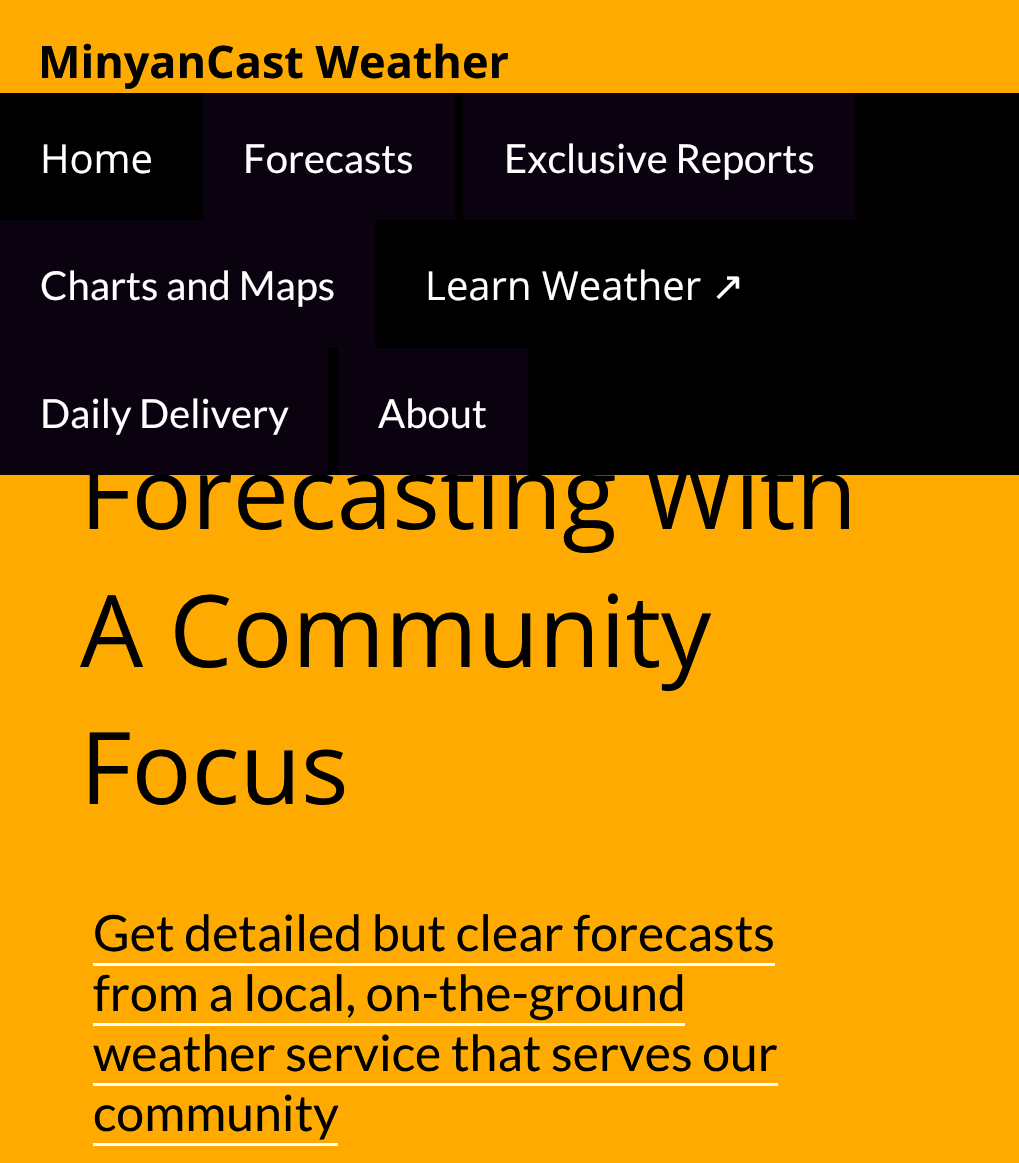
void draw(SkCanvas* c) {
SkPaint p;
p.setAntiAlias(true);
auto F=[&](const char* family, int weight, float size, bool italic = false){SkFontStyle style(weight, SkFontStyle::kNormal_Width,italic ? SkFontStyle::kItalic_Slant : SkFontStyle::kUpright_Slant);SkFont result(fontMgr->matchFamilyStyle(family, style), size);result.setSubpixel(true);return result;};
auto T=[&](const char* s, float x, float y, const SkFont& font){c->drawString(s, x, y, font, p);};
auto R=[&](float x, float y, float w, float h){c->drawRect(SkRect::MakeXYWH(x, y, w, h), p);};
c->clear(0xffffaa00);
auto f1 = F("Open Sans",700,45);
p.setColor(0xff000000);
T("MinyanCast Weather",38,78,f1);
R(0,93,1019,382);
auto f2 = F("Open Sans",400,40);
p.setColor(0xffffffff);
T("Home",40,173,f2);
p.setColor(0xff0b0210);
R(203,93,252,127);
auto f3 = F("Lato",400,40);
p.setColor(0xffffffff);
T("Forecasts",243,173,f3);
p.setColor(0xff0b0210);
R(463,93,392,127);
p.setColor(0xffffffff);
T("Exclusive Reports",504,173,f3);
p.setColor(0xff0b0210);
R(0,220,375,128);
p.setColor(0xffffffff);
T("Charts and Maps",40,300,f3);
T("Learn Weather",425,300,f2);
auto f4 = F("DejaVu Sans",400,40);
T("↗",711,300,f4);
auto f5 = F("Open Sans",400,100);
p.setColor(0xff000000);
T("Forecasting With",80,529,f5);
p.setColor(0xff0b0210);
R(0,348,328,127);
p.setColor(0xffffffff);
T("Daily Delivery",40,428,f3);
p.setColor(0xff0b0210);
R(338,348,190,127);
p.setColor(0xffffffff);
T("About",378,428,f3);
p.setColor(0xff000000);
T("A Community",80,667,f5);
T("Focus",80,804,f5);
auto f6 = F("Lato",400,50);
T("Get detailed but clear forecasts",93,951,f6);
p.setColor(0xffffffff);
R(93,963,682,3);
p.setColor(0xff000000);
T("from a local, on-the-ground",93,1011,f6);
p.setColor(0xffffffff);
R(93,1023,592,3);
p.setColor(0xff000000);
T("weather service that serves our",93,1071,f6);
p.setColor(0xffffffff);
R(93,1083,685,3);
p.setColor(0xff000000);
T("community",93,1131,f6);
p.setColor(0xffffffff);
R(93,1143,245,3);
}
